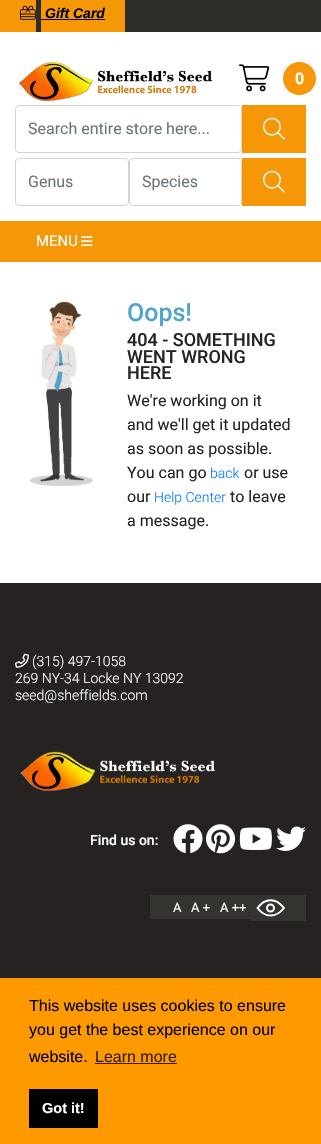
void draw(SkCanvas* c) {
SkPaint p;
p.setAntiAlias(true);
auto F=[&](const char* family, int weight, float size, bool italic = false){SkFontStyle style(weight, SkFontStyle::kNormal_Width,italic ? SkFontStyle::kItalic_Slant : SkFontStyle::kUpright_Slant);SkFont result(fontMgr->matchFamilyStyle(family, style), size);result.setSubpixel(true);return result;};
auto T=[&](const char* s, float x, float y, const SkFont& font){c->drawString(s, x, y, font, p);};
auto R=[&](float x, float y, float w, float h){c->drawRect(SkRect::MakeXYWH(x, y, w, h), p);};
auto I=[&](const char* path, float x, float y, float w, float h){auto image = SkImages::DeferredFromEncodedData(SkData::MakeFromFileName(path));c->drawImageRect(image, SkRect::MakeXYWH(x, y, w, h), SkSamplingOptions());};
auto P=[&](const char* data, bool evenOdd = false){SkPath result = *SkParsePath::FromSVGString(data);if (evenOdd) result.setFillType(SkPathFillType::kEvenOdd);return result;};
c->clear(0xffffffff);
p.setColor(0xff2e2d2a);
R(36,0,285,32);
p.setColor(0xfff69708);
R(0,0,36,32);
R(41,0,84,32);
I("1.png",20,5,16,15);
auto f1 = F("Liberation Sans",700,14,true);
p.setColor(0xff000000);
T("Gift Card",45,18,f1);
R(41,19,64,1);
I("2.png",18,62,195,40);
I("3.png",239,64,31,28);
p.setColor(0xfff69708);
c->drawCircle(299.5,78.5,16.5,p);
auto f2 = F("Roboto",700,16);
p.setColor(0xffffffff);
T("0",295,84,f2);
p.setStroke(true);
p.setStrokeWidth(1);
p.setColor(0xffced4da);
c->drawRoundRect(SkRect::MakeXYWH(15.5,105.5,226,47),3.5,3.5,p);
auto f3 = F("Roboto",400,16);
p.setStroke(false);
p.setColor(0xff6c757d);
T("Search entire store here...",28,134,f3);
p.setColor(0xfff69708);
R(242,105,64,48);
I("4.png",263,117,22,23);
p.setStroke(true);
p.setColor(0xffced4da);
c->drawRoundRect(SkRect::MakeXYWH(15.5,158.5,113,47),3.5,3.5,p);
p.setStroke(false);
p.setColor(0xff6c757d);
T("Genus",28,187,f3);
p.setStroke(true);
p.setColor(0xffced4da);
c->drawRoundRect(SkRect::MakeXYWH(129.5,158.5,112,47),3.5,3.5,p);
p.setStroke(false);
p.setColor(0xff6c757d);
T("Species",142,187,f3);
p.setColor(0xfff69708);
R(242,158,64,48);
I("4.png",263,170,22,23);
R(0,221,321,41);
auto f4 = F("Roboto",400,15);
p.setColor(0xffffffff);
T("MENU",36,246,f4);
I("5.png",81,236,12,10);
I("6.png",30,301,63,185);
auto f5 = F("Roboto",500,25);
p.setColor(0xff51a5cb);
T("Oops!",127,321,f5);
auto f6 = F("Roboto",500,18);
p.setColor(0xff212529);
T("404 - SOMETHING",127,346,f6);
T("WENT WRONG",127,363,f6);
T("HERE",127,379,f6);
T("We're working on it",127,406,f3);
T("and we'll get it updated",127,430,f3);
T("as soon as possible.",127,454,f3);
T("You can go",127,478,f3);
auto f7 = F("Roboto",300,14);
p.setColor(0xff007bff);
T("back",210,478,f7);
p.setColor(0xff212529);
T("or use",244,478,f3);
T("our",127,502,f3);
p.setColor(0xff007bff);
T("Help Center",154,502,f7);
p.setColor(0xff212529);
T("to leave",230,502,f3);
T("a message.",127,526,f3);
p.setColor(0xff262222);
R(0,583,321,395);
I("7.png",15,653,14,15);
p.setColor(0xffffffff);
T("(315) 497-1058",32,666,f7);
T("269 NY-34 Locke NY 13092",15,683,f7);
T("seed@sheffields.com",15,700,f7);
I("8.png",20,751,196,41);
auto f8 = F("Roboto",500,14);
T("Find us on:",90,845,f8);
I("9.png",173,824,30,29);
I("10.png",206,824,30,30);
I("11.png",239,827,33,23);
I("12.png",276,826,30,25);
p.setColor(0xff343330);
R(150,895,100,24);
auto f9 = F("Roboto",400,13);
p.setColor(0xffffffff);
T("A",173,912,f9);
T("A +",191,912,f9);
T("A ++",220,912,f9);
p.setColor(0xff343330);
R(250,895,56,26);
p.setStroke(true);
p.setStrokeWidth(2);
p.setColor(0xffffffff);
c->drawPath(P("M284 908c-8 10-19 10-26.5 0c7.5-10.5 18.5-10.5 26.5 0z"),p);
c->drawCircle(270.5,908,3.5,p);
p.setStroke(false);
p.setColor(0xffff9900);
R(0,978,321,166);
auto f10 = F("Liberation Sans",400,16);
p.setColor(0xff000000);
T("This website uses cookies to ensure",29,1011,f10);
T("you get the best experience on our",29,1035,f10);
T("website.",29,1062,f10);
p.setColor(0xff331f00);
T("Learn more",95,1062,f10);
R(95,1063,82,1);
p.setColor(0xff000000);
R(29,1089,69,39);
auto f11 = F("Liberation Sans",700,14.5);
p.setColor(0xffffffff);
T("Got it!",42,1113,f11);
}
